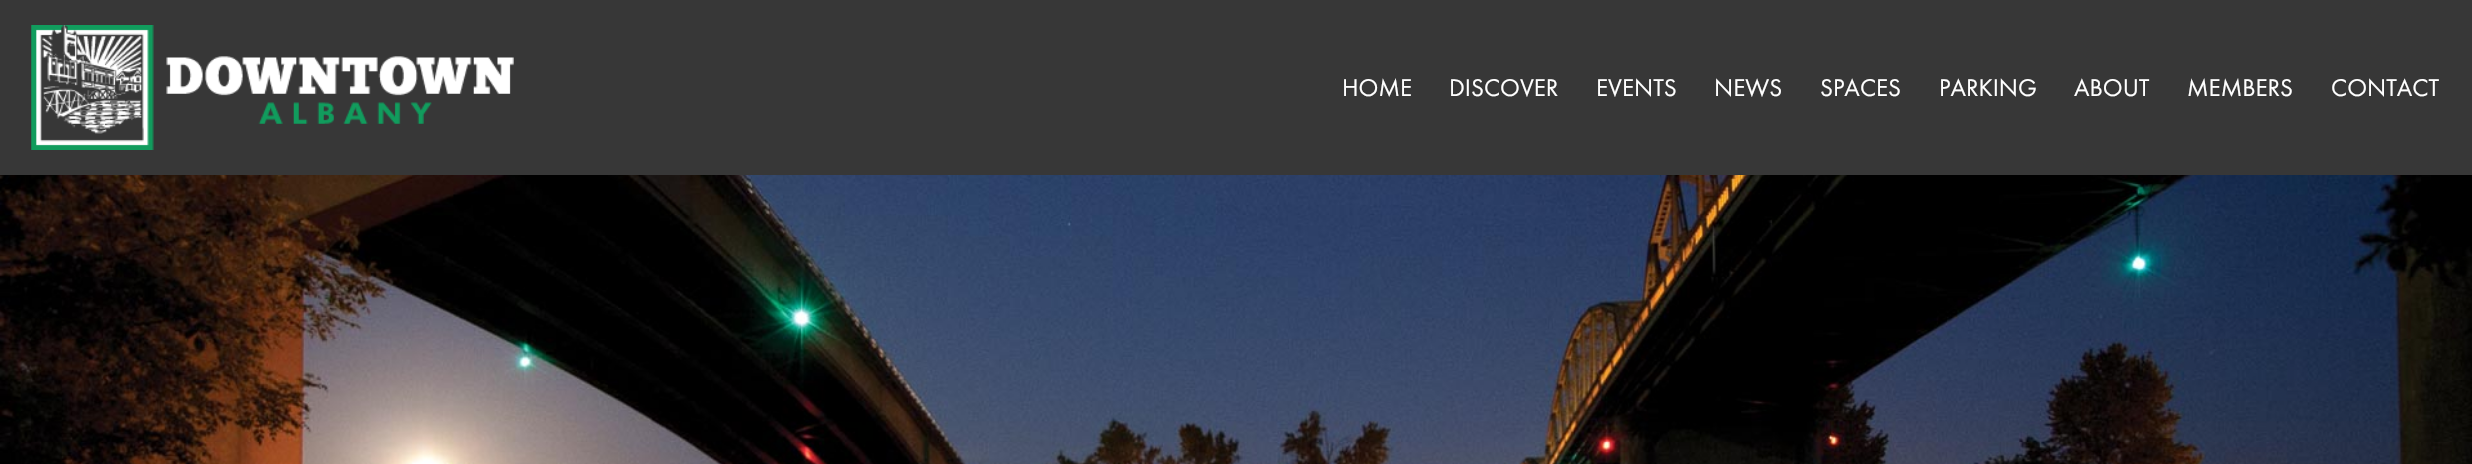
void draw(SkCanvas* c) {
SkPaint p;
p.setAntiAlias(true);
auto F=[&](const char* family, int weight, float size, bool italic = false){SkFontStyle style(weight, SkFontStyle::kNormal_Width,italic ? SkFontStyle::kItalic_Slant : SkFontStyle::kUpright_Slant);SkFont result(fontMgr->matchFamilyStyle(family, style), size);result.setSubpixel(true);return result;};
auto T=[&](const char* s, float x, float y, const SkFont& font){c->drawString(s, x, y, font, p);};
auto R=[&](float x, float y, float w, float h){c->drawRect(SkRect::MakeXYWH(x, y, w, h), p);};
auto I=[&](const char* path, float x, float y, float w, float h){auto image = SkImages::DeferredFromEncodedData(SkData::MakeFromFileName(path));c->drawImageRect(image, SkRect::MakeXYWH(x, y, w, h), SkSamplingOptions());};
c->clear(0xffffffff);
p.setColor(0xff373737);
R(0,0,2472,175);
I("1.png",31,25,483,125);
auto f1 = F("Futura PT",400,25);
p.setColor(0xffffffff);
T("HOME",1342,96,f1);
T("DISCOVER",1449,96,f1);
T("EVENTS",1596,96,f1);
T("NEWS",1714,96,f1);
T("SPACES",1820,96,f1);
T("PARKING",1939,96,f1);
T("ABOUT",2074,96,f1);
T("MEMBERS",2187,96,f1);
T("CONTACT",2331,96,f1);
I("2.png",0,175,2472,289);
}
